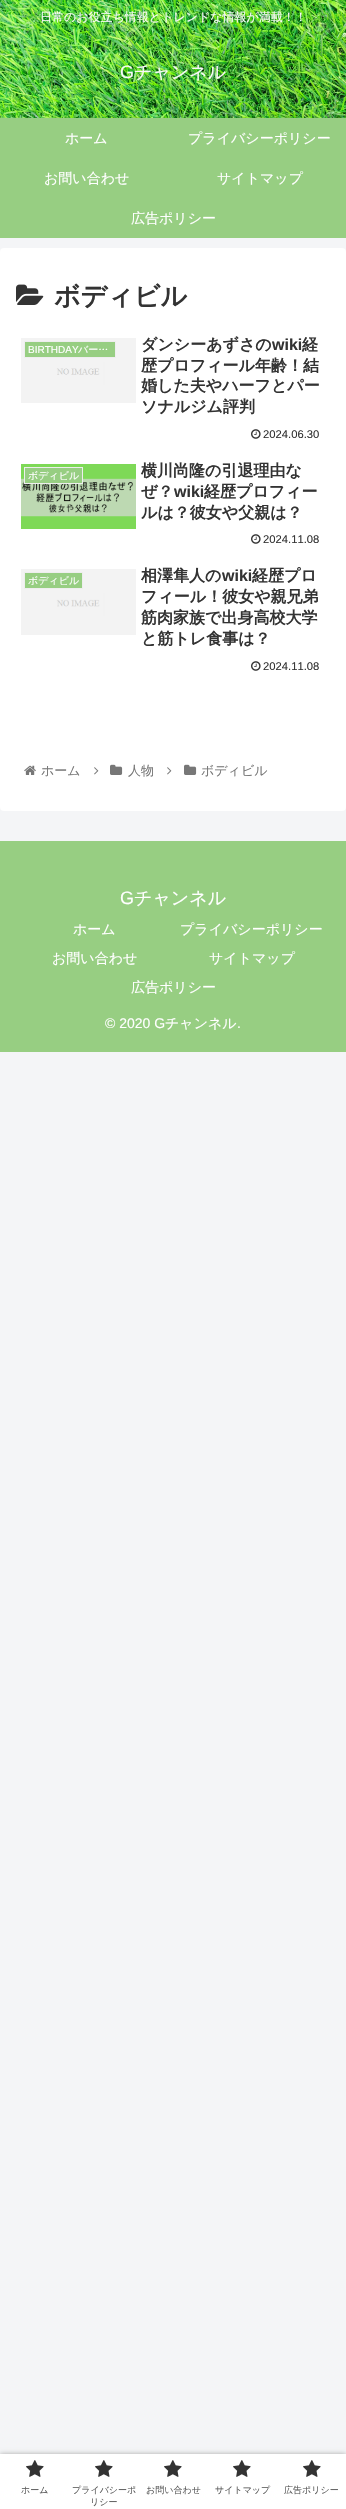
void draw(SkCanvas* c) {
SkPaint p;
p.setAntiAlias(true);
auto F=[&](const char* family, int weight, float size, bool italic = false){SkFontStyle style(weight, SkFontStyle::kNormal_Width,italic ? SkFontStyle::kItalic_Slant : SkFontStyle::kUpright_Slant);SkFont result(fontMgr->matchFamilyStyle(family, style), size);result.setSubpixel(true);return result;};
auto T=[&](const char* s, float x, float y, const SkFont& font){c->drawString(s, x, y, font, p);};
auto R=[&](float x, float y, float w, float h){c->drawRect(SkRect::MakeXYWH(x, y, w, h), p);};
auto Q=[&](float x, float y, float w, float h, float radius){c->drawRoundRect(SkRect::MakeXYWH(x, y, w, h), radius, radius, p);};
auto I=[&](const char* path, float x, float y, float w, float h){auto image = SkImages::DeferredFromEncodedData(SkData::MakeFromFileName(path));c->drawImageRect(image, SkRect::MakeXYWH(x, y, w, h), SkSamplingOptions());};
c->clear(0xfff4f5f7);
I("1.png",0,0,346,118);
auto f1 = F("WenQuanYi Zen Hei",500,12);
p.setColor(0xfff9f9f9);
T("日常のお役立ち情報とトレンドな情報が満載！！",40,21,f1);
auto f2 = F("Liberation Sans",400,18);
T("G",120,78,f2);
auto f3 = F("WenQuanYi Zen Hei",500,18);
T("チャンネル",134,78,f3);
p.setColor(0xff97ce82);
R(0,118,346,120);
auto f4 = F("WenQuanYi Zen Hei",500,14);
p.setColor(0xffffffff);
T("ホーム",65,143,f4);
T("プライバシーポリシー",188,143,f4);
T("お問い合わせ",44,183,f4);
T("サイトマップ",217,183,f4);
T("広告ポリシー",131,223,f4);
Q(0,248,346,563,4);
I("2.png",16,284,28,21);
auto f5 = F("WenQuanYi Zen Hei",700,26);
p.setColor(0xff333333);
T("ボディビル",54,305,f5);
I("3.png",21,338,115,65);
p.setColor(0xff97ce82);
c->drawRect(SkRect::MakeXYWH(24.5,341.5,91,16),p);
p.setStroke(true);
p.setStrokeWidth(1);
p.setColor(0xffeeeeee);
c->drawRect(SkRect::MakeXYWH(24.5,341.5,91,16),p);
auto f6 = F("Liberation Sans",400,10);
p.setStroke(false);
p.setColor(0xffffffff);
T("BIRTHDAY",28,353,f6);
auto f7 = F("WenQuanYi Zen Hei",500,10);
T("バー…",78,353,f7);
auto f8 = F("WenQuanYi Zen Hei",700,16);
p.setColor(0xff333333);
T("ダンシーあずさの",141,350,f8);
auto f9 = F("Liberation Sans",700,16);
T("wiki",272,350,f9);
T("経",302,350,f8);
T("歴プロフィール年齢！結",141,371,f8);
T("婚した夫やハーフとパー",141,391,f8);
T("ソナルジム評判",141,412,f8);
I("4.png",251,429,10,10);
auto f10 = F("Liberation Sans",400,11.25);
T("2024.06.30",263,438,f10);
I("5.png",21,464,115,65);
p.setColor(0xff97ce82);
c->drawRect(SkRect::MakeXYWH(24.5,467.5,58,16),p);
p.setStroke(true);
p.setColor(0xffeeeeee);
c->drawRect(SkRect::MakeXYWH(24.5,467.5,58,16),p);
p.setStroke(false);
p.setColor(0xffffffff);
T("ボディビル",28,479,f7);
p.setColor(0xff333333);
T("横川尚隆の引退理由な",141,476,f8);
T("ぜ？",141,497,f8);
T("wiki",174,497,f9);
T("経歴プロフィー",204,497,f8);
T("ルは？彼女や父親は？",141,518,f8);
I("4.png",251,534,10,10);
T("2024.11.08",263,543,f10);
I("6.png",21,569,115,66);
p.setColor(0xff97ce82);
c->drawRect(SkRect::MakeXYWH(24.5,572.5,58,16),p);
p.setStroke(true);
p.setColor(0xffeeeeee);
c->drawRect(SkRect::MakeXYWH(24.5,572.5,58,16),p);
p.setStroke(false);
p.setColor(0xffffffff);
T("ボディビル",28,584,f7);
p.setColor(0xff333333);
T("相澤隼人の",141,581,f8);
T("wiki",222,581,f9);
T("経歴プロ",252,581,f8);
T("フィール！彼女や親兄弟",141,602,f8);
T("筋肉家族で出身高校大学",141,623,f8);
T("と筋トレ食事は？",141,644,f8);
I("4.png",251,661,10,10);
T("2024.11.08",263,670,f10);
I("7.png",24,765,12,10);
auto f11 = F("WenQuanYi Zen Hei",500,13);
p.setColor(0xff777777);
T("ホーム",41,775,f11);
I("8.png",94,767,5,8);
I("9.png",110,764,13,11);
T("人物",128,775,f11);
I("8.png",167,767,5,8);
I("9.png",184,764,13,11);
T("ボディビル",201,775,f11);
p.setColor(0xff97ce82);
R(0,841,346,211);
p.setColor(0xffffffff);
T("G",120,904,f2);
T("チャンネル",134,904,f3);
T("ホーム",73,934,f4);
T("プライバシーポリシー",180,934,f4);
T("お問い合わせ",52,963,f4);
T("サイトマップ",209,963,f4);
T("広告ポリシー",131,992,f4);
auto f12 = F("Liberation Sans",400,14);
T("© 2020 G",105,1028,f12);
T("チャンネル",165,1028,f4);
T(".",237,1028,f12);
p.setColor(0xffa9a9a9);
p.setMaskFilter(SkMaskFilter::MakeBlur(kNormal_SkBlurStyle, 2.5));
c->drawRect(SkRect::MakeXYWH(0,2454,346,55),p);
p.setMaskFilter(nullptr);
p.setColor(0xffffffff);
R(0,2454,346,55);
I("10.png",26,2460,18,17);
auto f13 = F("WenQuanYi Zen Hei",500,9);
p.setColor(0xff5c5c5c);
T("ホーム",21,2493,f13);
I("10.png",95,2460,18,17);
T("プライバシーポ",72,2493,f13);
T("リシー",90,2505,f13);
I("10.png",164,2460,18,17);
T("お問い合わせ",146,2493,f13);
I("10.png",233,2460,18,17);
T("サイトマップ",215,2493,f13);
I("10.png",303,2460,18,17);
T("広告ポリシー",284,2493,f13);
}
